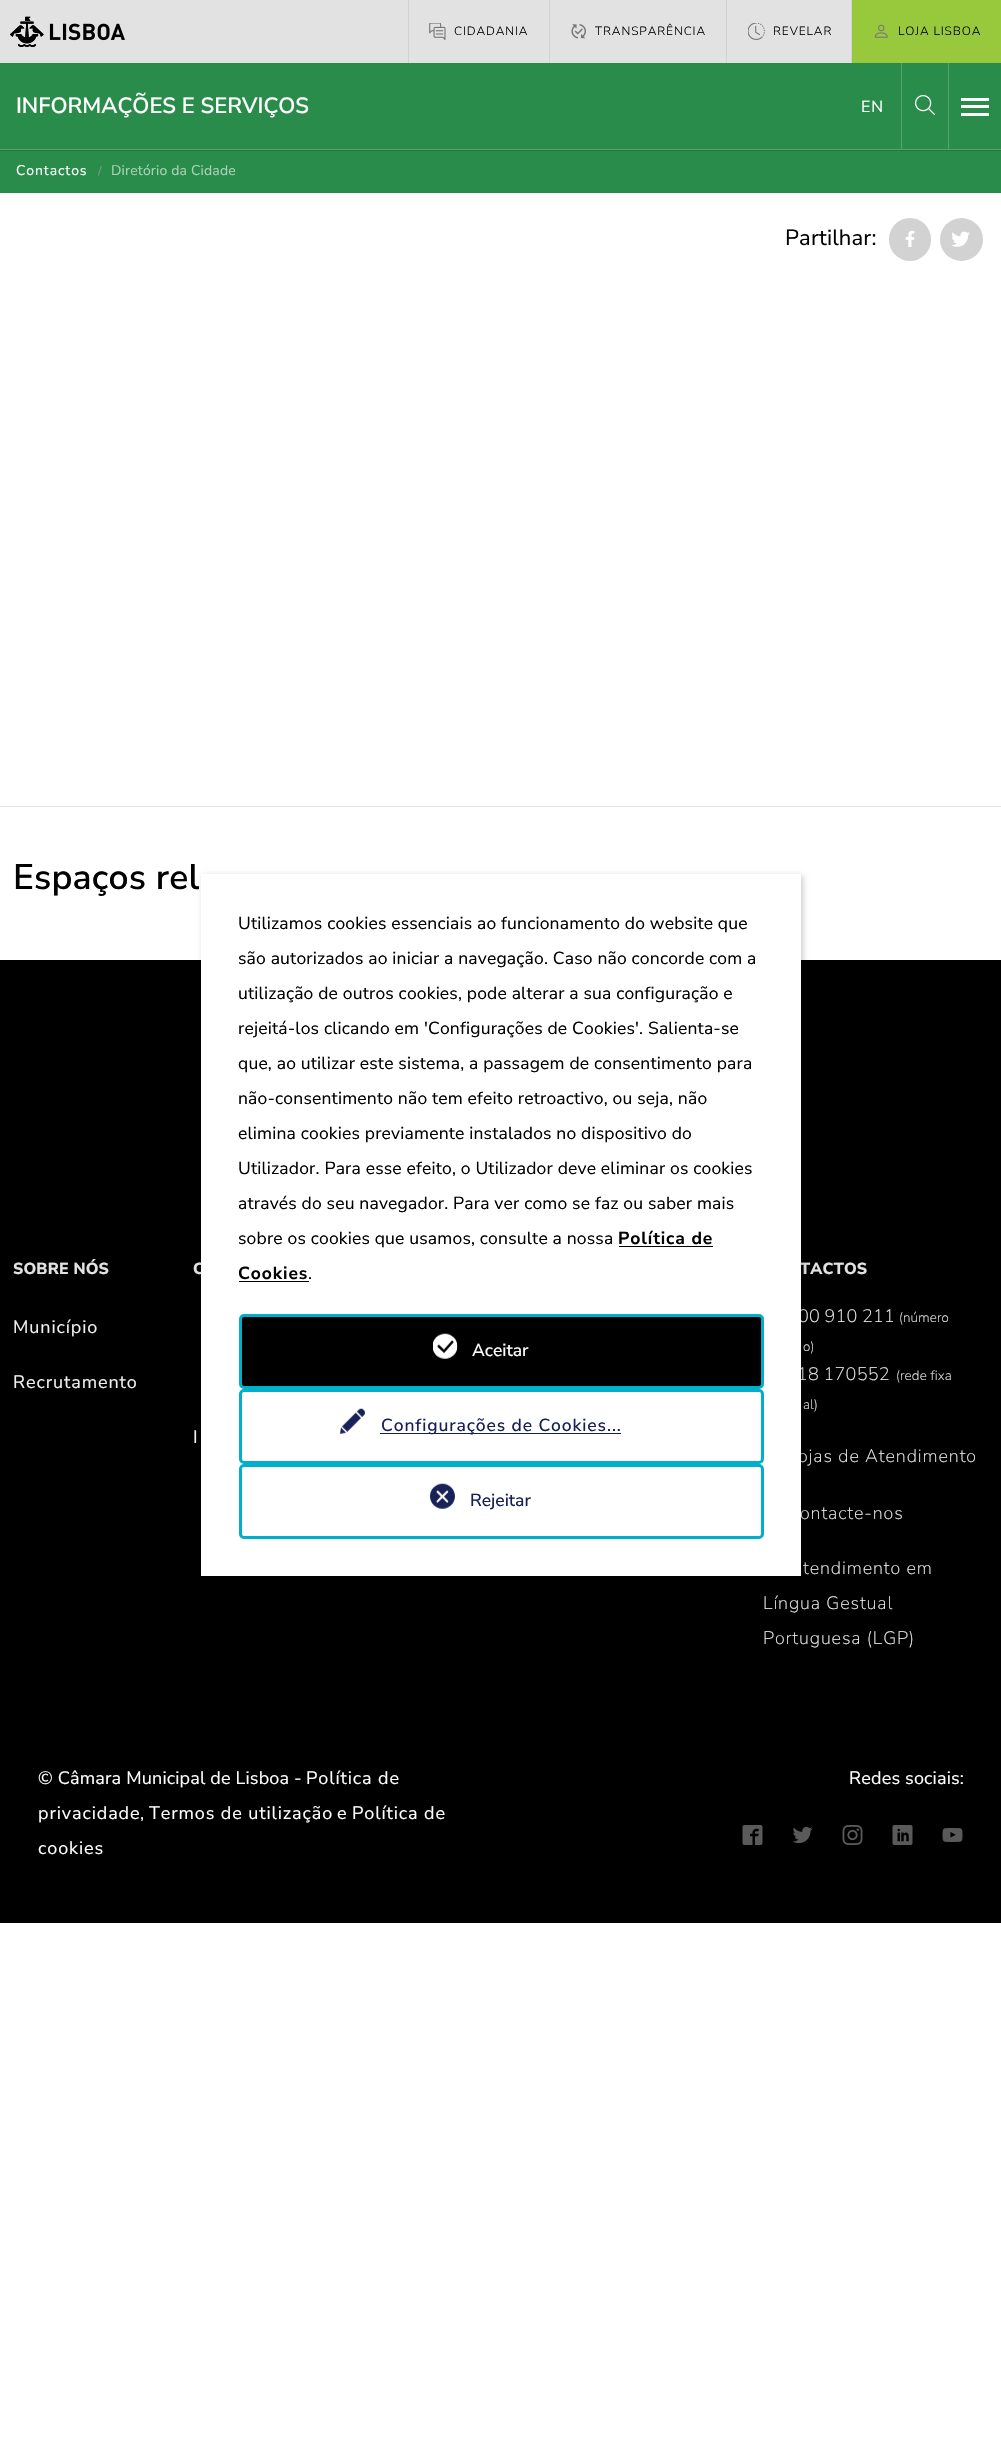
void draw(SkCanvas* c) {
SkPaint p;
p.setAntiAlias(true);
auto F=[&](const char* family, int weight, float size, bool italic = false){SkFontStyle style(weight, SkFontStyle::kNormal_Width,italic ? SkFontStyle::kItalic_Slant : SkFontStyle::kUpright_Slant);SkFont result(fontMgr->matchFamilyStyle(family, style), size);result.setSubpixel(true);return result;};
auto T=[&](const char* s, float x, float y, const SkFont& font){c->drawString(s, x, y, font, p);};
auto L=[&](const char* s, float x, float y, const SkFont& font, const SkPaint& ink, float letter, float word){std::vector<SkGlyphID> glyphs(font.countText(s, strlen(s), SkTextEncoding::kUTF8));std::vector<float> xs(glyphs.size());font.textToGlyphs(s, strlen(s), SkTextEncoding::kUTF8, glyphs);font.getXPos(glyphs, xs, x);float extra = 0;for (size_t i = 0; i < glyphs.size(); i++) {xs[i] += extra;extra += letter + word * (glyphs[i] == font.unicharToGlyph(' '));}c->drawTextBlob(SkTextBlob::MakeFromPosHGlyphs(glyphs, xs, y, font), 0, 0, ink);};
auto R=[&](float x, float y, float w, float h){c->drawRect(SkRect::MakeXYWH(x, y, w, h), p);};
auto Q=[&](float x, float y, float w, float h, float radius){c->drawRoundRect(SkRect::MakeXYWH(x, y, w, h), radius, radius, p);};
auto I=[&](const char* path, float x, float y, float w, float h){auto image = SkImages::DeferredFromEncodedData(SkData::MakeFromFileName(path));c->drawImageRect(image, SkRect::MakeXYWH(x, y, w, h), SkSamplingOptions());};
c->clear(0xffffffff);
p.setColor(0xffe2e2e2);
R(0,0,851,63);
I("1.png",10,16,115,31);
p.setColor(0xffd2d2d2);
R(408,0,1,63);
I("2.png",429,23,17,17);
auto f1 = F("Nunito Sans",300,12);
p.setColor(0xff000000);
L("CIDADANIA",454,35,f1,p,.9,0);
p.setColor(0xffd2d2d2);
R(549,0,1,63);
I("3.png",571,24,15,15);
p.setColor(0xff000000);
L("TRANSPARÊNCIA",595,35,f1,p,.9,0);
p.setColor(0xffd2d2d2);
R(726,0,1,63);
I("4.png",748,23,17,17);
p.setColor(0xff000000);
L("REVELAR",773,35,f1,p,.9,0);
p.setColor(0xff98c93c);
R(852,0,149,63);
p.setColor(0xffd2d2d2);
R(851,0,1,63);
I("5.png",874,24,14,14);
p.setColor(0xff000000);
L("LOJA LISBOA",898,35,f1,p,.9,0);
p.setColor(0xff24773f);
R(0,150,1001,1);
p.setColor(0xff2a8c4a);
R(0,63,1001,86);
p.setColor(0xff55a36e);
R(0,149,1001,1);
auto f2 = F("Nunito Sans",600,22);
p.setColor(0xffffffff);
T("INFORMAÇÕES E SERVIÇOS",16,113,f2);
auto f3 = F("Nunito Sans",400,16);
L("EN",861,112,f3,p,.9,0);
p.setColor(0xff55a36e);
R(948,63,1,86);
R(901,63,1,86);
I("6.png",915,95,20,20);
p.setColor(0xffffffff);
R(961,105,28,3);
R(961,98,28,3);
R(961,113,28,3);
p.setColor(0xff2a8c4a);
R(0,151,1001,42);
auto f4 = F("Nunito Sans",400,14);
p.setColor(0xffffffff);
L("Contactos",16,175,f4,p,.9,0);
auto f5 = F("Nunito Sans",400,12);
p.setColor(0xff939393);
L("/",98,175,f5,p,.18,0);
p.setColor(0xffaad1b7);
L("Diretório da Cidade",111,175,f4,p,.18,0);
auto f6 = F("Nunito Sans",400,22);
p.setColor(0xff000000);
L("Partilhar:",785,245,f6,p,.18,0);
p.setColor(0xffd2d2d2);
Q(889,218,42,43,21);
I("7.png",905,230,10,17);
c->drawCircle(961.5,239.5,21.5,p);
I("8.png",951,231,19,16);
p.setColor(0xffe6e6e6);
R(0,806,1001,1);
auto f7 = F("Nunito Sans",600,35.5);
p.setColor(0xff000000);
L("Espaços rel",13,889,f7,p,.18,0);
R(0,960,1001,963);
auto f8 = F("Nunito Sans",800,16);
p.setColor(0xffe2e2e2);
L("SOBRE NÓS",13,1274,f8,p,.18,0);
auto f9 = F("Nunito Sans",400,18);
p.setColor(0xfff0f0f0);
L("Município",13,1333,f9,p,.9,0);
L("Recrutamento",13,1388,f9,p,.9,0);
p.setColor(0xffe2e2e2);
L("C",193,1274,f8,p,.18,0);
p.setColor(0xfff0f0f0);
L("I",193,1443,f9,p,.9,0);
p.setColor(0xffe2e2e2);
L("TACTOS",800,1274,f8,p,.18,0);
auto f10 = F("Nunito Sans",200,18);
p.setColor(0xfff0f0f0);
L("00 910 211",798,1322,f10,p,.18,0);
auto f11 = F("Nunito Sans",200,13.5);
L("(número",899,1322,f11,p,.18,0);
L("o)",803,1351,f11,p,.18,0);
L("18 170 552",797,1380,f10,p,.18,0);
L("(rede fixa",896,1380,f11,p,.18,0);
L("al)",803,1409,f11,p,.18,0);
L("ojas de Atendimento",798,1462,f10,p,.9,0);
L("ontacte-nos",800,1519,f10,p,.9,0);
L("tendimento em",803,1574,f10,p,.9,0);
L("Língua Gestual",763,1609,f10,p,.9,0);
L("Portuguesa (LGP)",763,1644,f10,p,.9,0);
p.setColor(0xffffffff);
L("© Câmara Municipal de Lisboa -",38,1784,f9,p,.18,0);
L("Política de",306,1784,f9,p,.9,0);
L("privacidade",38,1819,f9,p,.9,0);
L(",",140,1819,f9,p,.18,0);
L("Termos de utilização",149,1819,f9,p,.9,0);
L("e",337,1819,f9,p,.18,0);
L("Política de",352,1819,f9,p,.9,0);
L("cookies",38,1854,f9,p,.9,0);
L("Redes sociais:",849,1784,f9,p,.18,0);
I("9.png",742,1825,21,20);
I("10.png",792,1826,21,18);
I("11.png",842,1825,21,20);
I("12.png",892,1825,21,20);
I("13.png",942,1828,21,14);
p.setColor(0x33000000);
p.setMaskFilter(SkMaskFilter::MakeBlur(kNormal_SkBlurStyle, 3));
c->drawRect(SkRect::MakeXYWH(203,876,600,703),p);
p.setMaskFilter(nullptr);
p.setColor(0xffffffff);
R(201,874,600,702);
auto f12 = F("Nunito Sans",400,17.5);
p.setColor(0xff000000);
L("Utilizamos cookies essenciais ao funcionamento do website que",238,929,f12,p,.18,0);
L("são autorizados ao iniciar a navegação. Caso não concorde com a",238,964,f12,p,.18,0);
L("utilização de outros cookies, pode alterar a sua configuração e",238,999,f12,p,.18,0);
L("rejeitá-los clicando em 'Configurações de Cookies'. Salienta-se",238,1034,f12,p,.18,0);
L("que, ao utilizar este sistema, a passagem de consentimento para",238,1069,f12,p,.18,0);
L("não-consentimento não tem efeito retroactivo, ou seja, não",238,1104,f12,p,.18,0);
L("elimina cookies previamente instalados no dispositivo do",238,1139,f12,p,.18,0);
L("Utilizador. Para esse efeito, o Utilizador deve eliminar os cookies",238,1174,f12,p,.18,0);
L("através do seu navegador. Para ver como se faz ou saber mais",238,1209,f12,p,.18,0);
L("sobre os cookies que usamos, consulte a nossa",238,1244,f12,p,.18,0);
auto f13 = F("Nunito Sans",700,17.5);
L("Política de",618,1244,f13,p,.9,0);
R(619,1246,94,1);
L("Cookies",238,1279,f13,p,.9,0);
L(".",308,1279,f12,p,.18,0);
R(239,1281,70,1);
c->drawRoundRect(SkRect::MakeXYWH(240.5,1315.5,522,72),3.5,3.5,p);
p.setStroke(true);
p.setStrokeWidth(3);
p.setColor(0xff00afcb);
c->drawRoundRect(SkRect::MakeXYWH(240.5,1315.5,522,72),3.5,3.5,p);
I("14.png",433,1333,25,26);
auto f14 = F("Nunito Sans",500,17.5);
p.setStroke(false);
p.setColor(0xffffffff);
T("Aceitar",472,1356,f14);
p.setStroke(true);
p.setColor(0xff00afcb);
c->drawRoundRect(SkRect::MakeXYWH(240.5,1465.5,522,72),3.5,3.5,p);
I("15.png",430,1483,25,26);
p.setStroke(false);
p.setColor(0xff161f57);
T("Rejeitar",470,1506,f14);
p.setStroke(true);
p.setColor(0xff00afcb);
c->drawRoundRect(SkRect::MakeXYWH(240.5,1390.5,522,72),3.5,3.5,p);
I("16.png",340,1408,25,26);
p.setStroke(false);
p.setColor(0xff161f57);
R(380,1433,241,1);
L("Configurações de Cookies...",381,1431,f14,p,.9,0);
}
